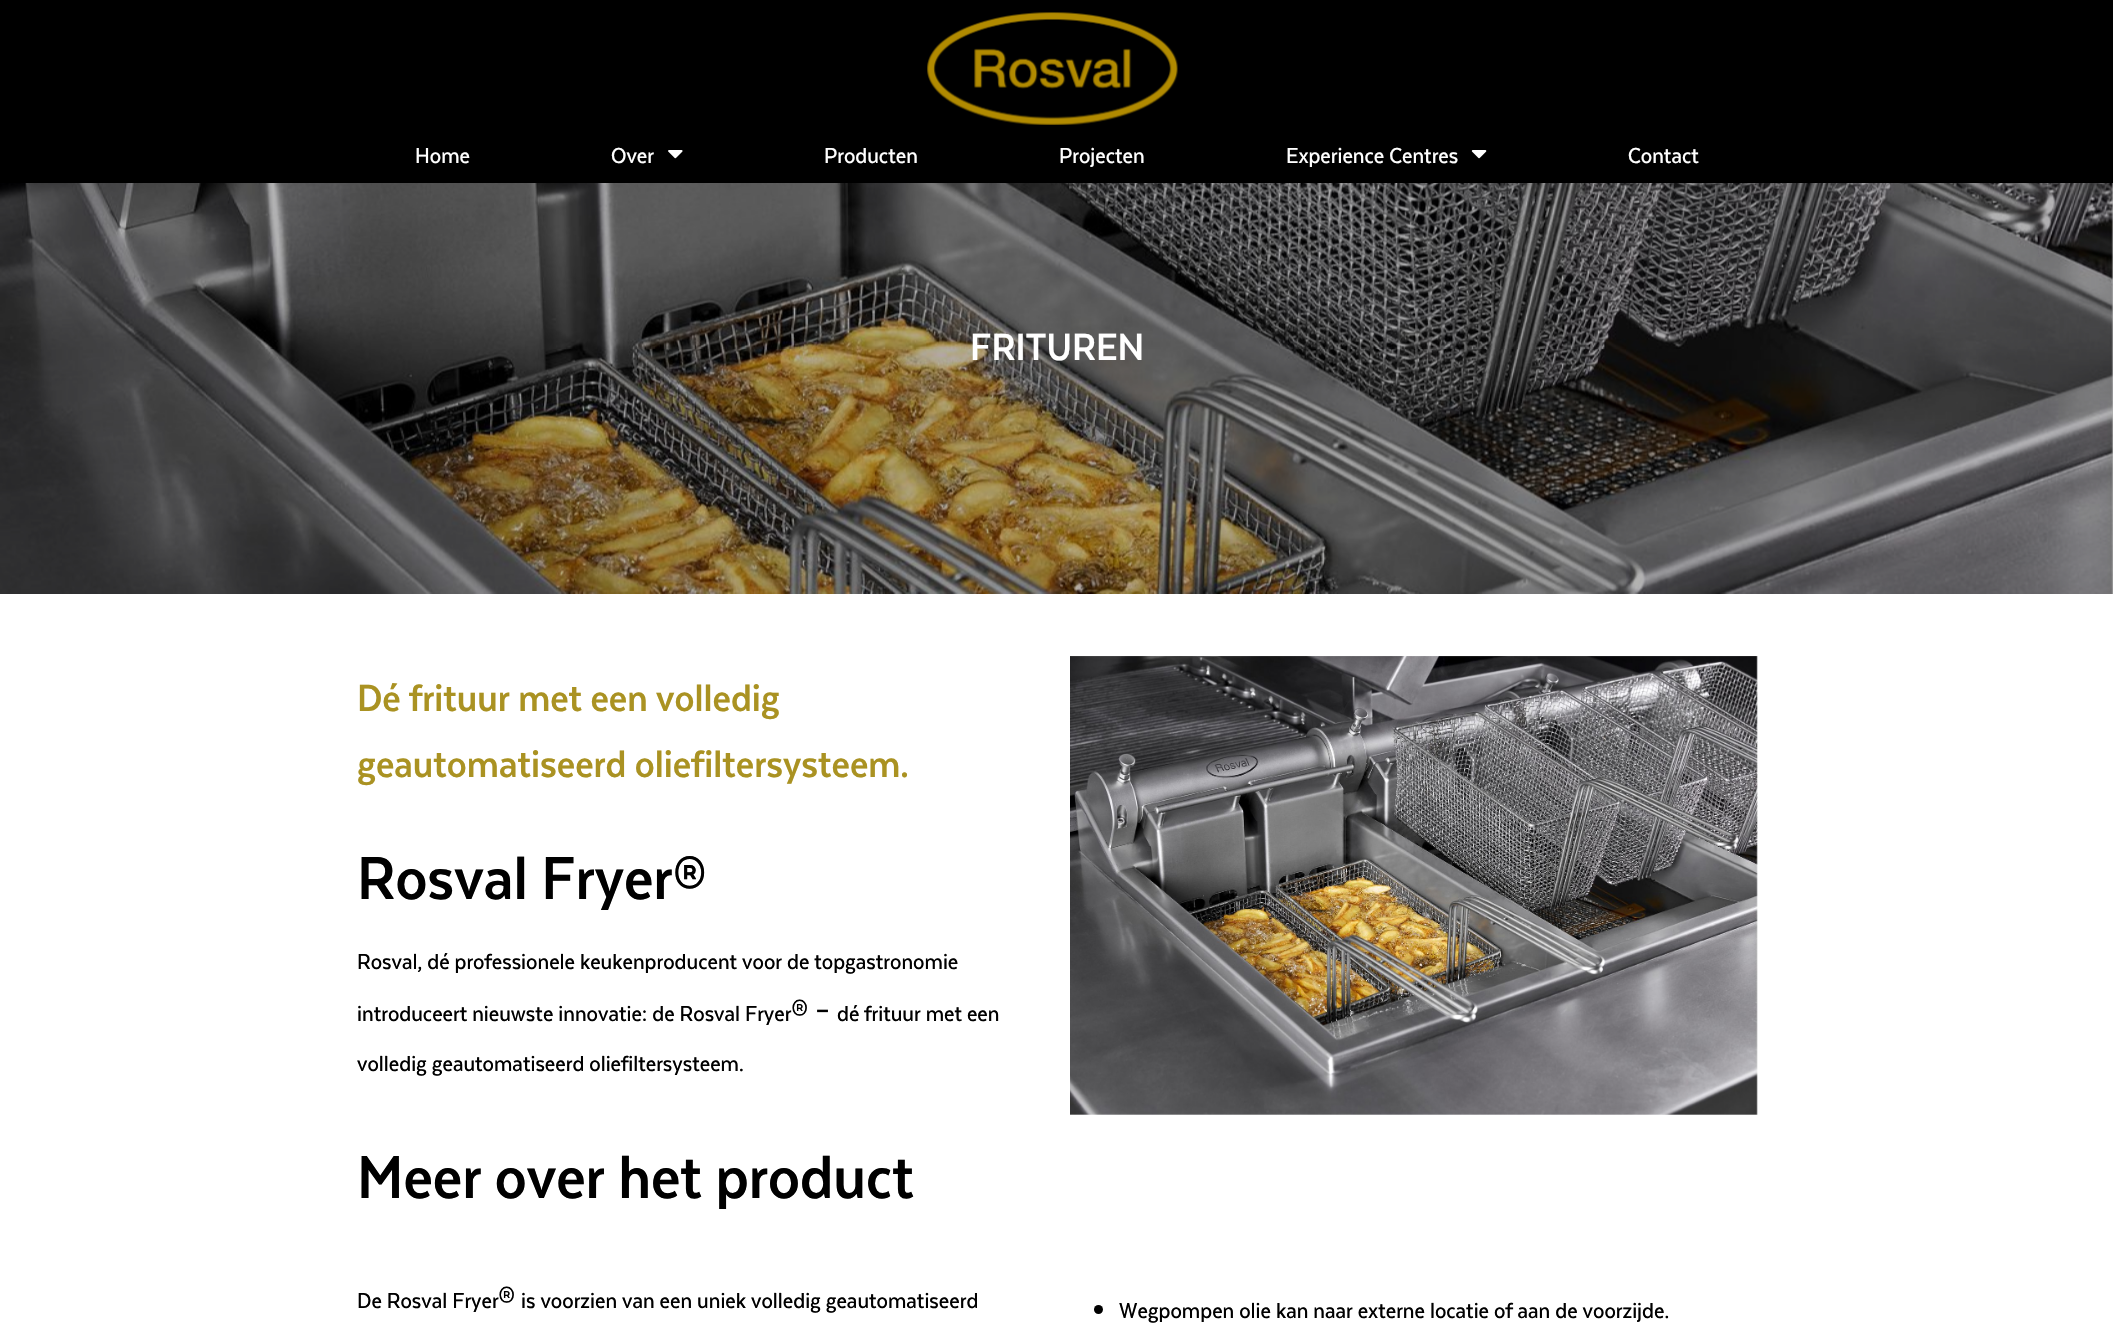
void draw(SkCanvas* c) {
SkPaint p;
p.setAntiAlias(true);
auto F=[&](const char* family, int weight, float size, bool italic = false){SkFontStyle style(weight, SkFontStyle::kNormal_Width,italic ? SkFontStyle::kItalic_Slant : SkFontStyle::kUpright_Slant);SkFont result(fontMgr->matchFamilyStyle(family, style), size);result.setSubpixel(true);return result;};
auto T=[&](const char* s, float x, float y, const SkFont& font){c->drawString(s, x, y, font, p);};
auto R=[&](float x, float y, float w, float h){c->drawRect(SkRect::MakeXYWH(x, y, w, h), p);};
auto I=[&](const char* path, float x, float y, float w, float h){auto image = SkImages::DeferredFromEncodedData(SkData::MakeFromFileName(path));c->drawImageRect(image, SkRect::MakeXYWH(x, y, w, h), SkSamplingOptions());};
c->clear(0xffffffff);
p.setColor(0xff000000);
R(0,0,2113,183);
I("1.png",927,12,251,113);
auto f1 = F("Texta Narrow",500,25);
p.setColor(0xffffffff);
T("Home",415,163,f1);
T("Over",611,163,f1);
I("2.png",668,150,15,9);
T("Producten",824,163,f1);
T("Projecten",1059,163,f1);
T("Experience Centres",1286,163,f1);
I("3.png",1471,150,16,9);
T("Contact",1628,163,f1);
I("4.png",0,183,2113,411);
auto f2 = F("Texta Narrow",700,43.75);
T("FRITUREN",970,360,f2);
p.setColor(0xffaa9222);
T("Dé frituur met een volledig",357,711,f2);
T("geautomatiseerd oliefiltersysteem.",357,777,f2);
auto f3 = F("Texta Narrow",700,70);
p.setColor(0xff000000);
T("Rosval Fryer®",357,899,f3);
T("Rosval, dé professionele keukenproducent voor de topgastronomie",357,969,f1);
T("introduceert nieuwste innovatie: de Rosval Fryer",357,1021,f1);
auto f4 = F("Texta Narrow",500,35);
T("® –",791,1021,f4);
T("dé frituur met een",837,1021,f1);
T("volledig geautomatiseerd oliefiltersysteem.",357,1071,f1);
I("5.png",1070,656,688,459);
T("Meer over het product",357,1198,f3);
T("De Rosval Fryer",357,1308,f1);
T("®",498,1308,f4);
T("is voorzien van een uniek volledig geautomatiseerd",521,1308,f1);
c->drawCircle(1098.5,1309.5,4.5,p);
T("Wegpompen olie kan naar externe locatie of aan de voorzijde.",1119,1318,f1);
}
